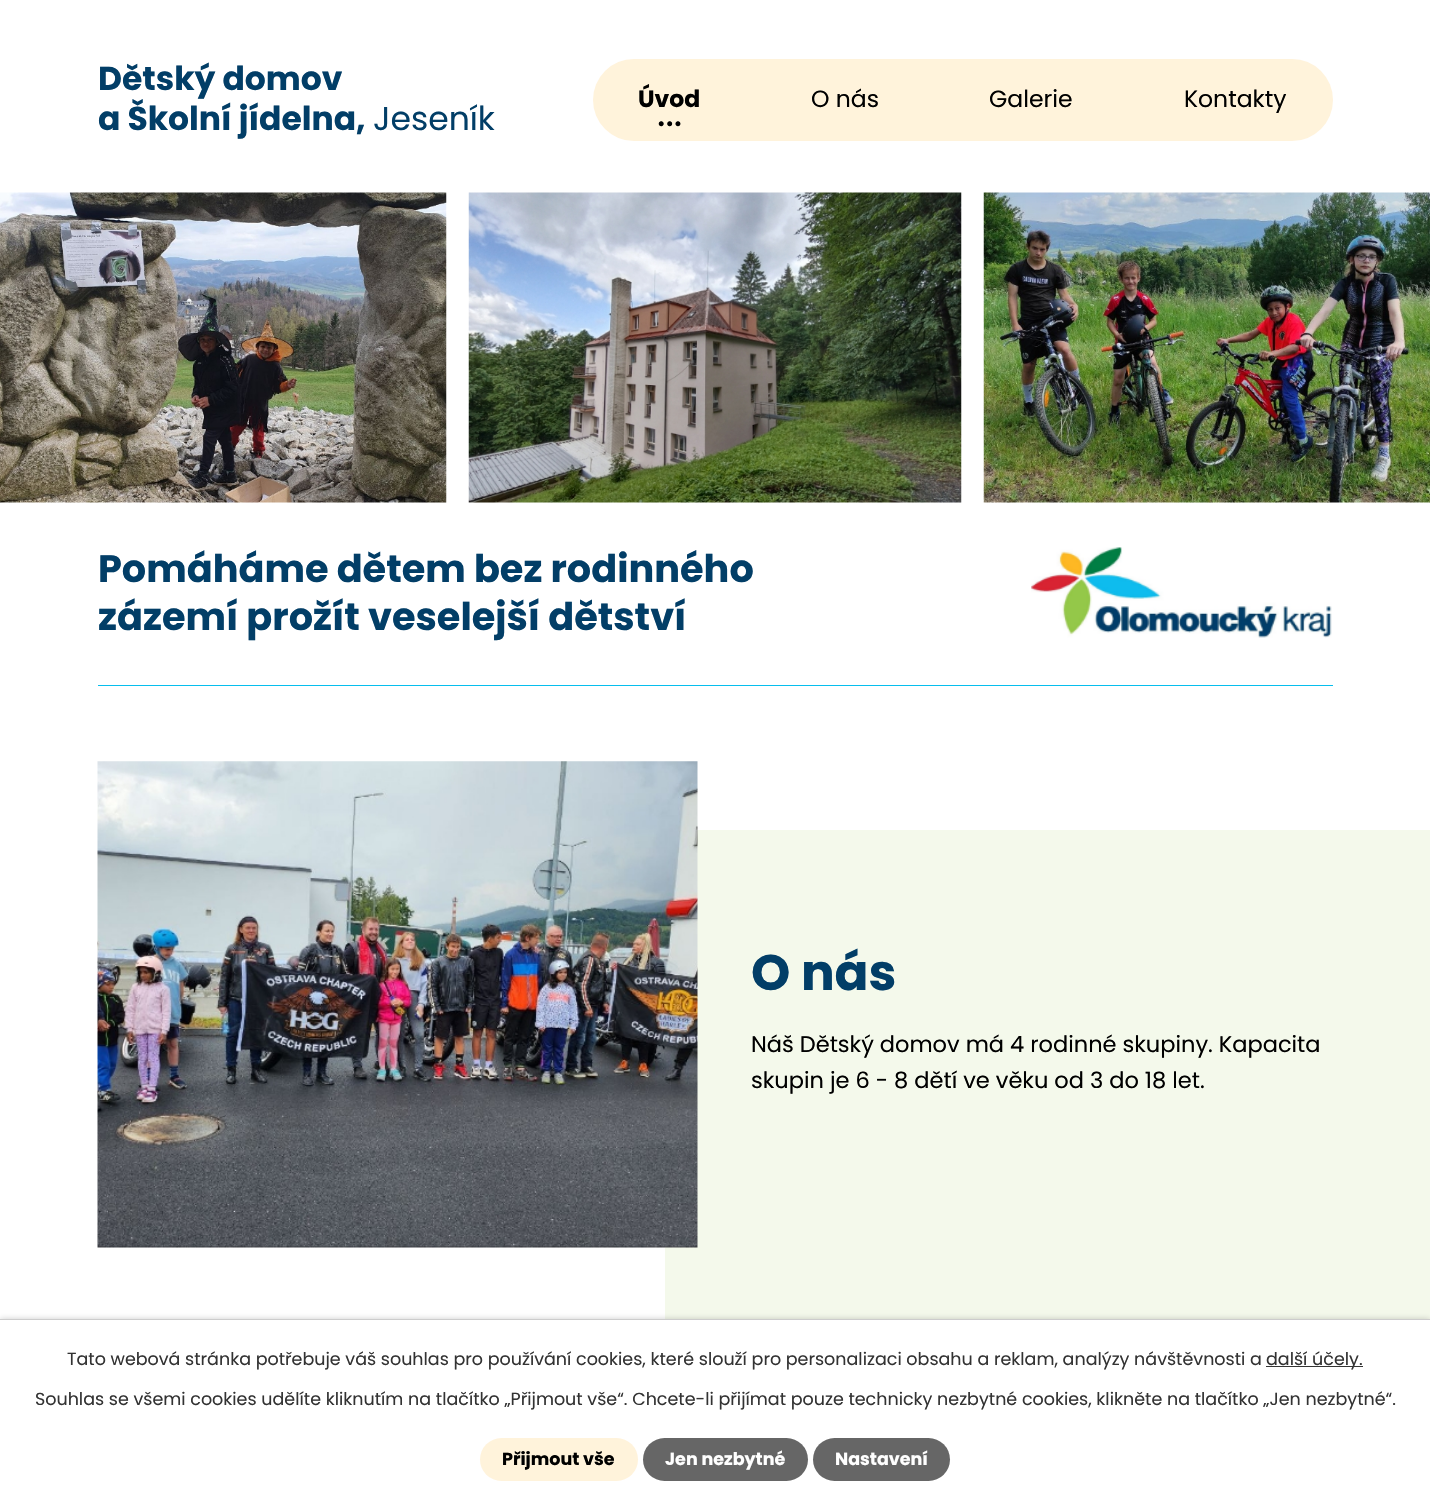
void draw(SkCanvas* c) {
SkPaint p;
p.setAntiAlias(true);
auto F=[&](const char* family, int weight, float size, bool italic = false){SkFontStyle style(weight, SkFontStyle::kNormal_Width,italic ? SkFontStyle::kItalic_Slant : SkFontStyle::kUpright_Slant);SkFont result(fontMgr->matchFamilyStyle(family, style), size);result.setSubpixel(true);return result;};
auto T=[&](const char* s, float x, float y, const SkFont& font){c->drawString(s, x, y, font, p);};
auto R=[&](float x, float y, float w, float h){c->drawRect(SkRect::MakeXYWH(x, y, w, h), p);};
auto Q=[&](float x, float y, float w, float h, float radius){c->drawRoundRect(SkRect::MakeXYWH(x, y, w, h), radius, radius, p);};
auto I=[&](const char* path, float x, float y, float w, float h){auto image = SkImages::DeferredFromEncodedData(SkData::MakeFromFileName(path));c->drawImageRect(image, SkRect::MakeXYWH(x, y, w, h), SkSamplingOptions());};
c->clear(0xffffffff);
auto f1 = F("Poppins",700,33);
p.setColor(0xff023e67);
T("Dětský domov",98,90,f1);
T("a Školní jídelna,",98,130,f1);
auto f2 = F("Poppins",400,33);
T("Jeseník",373,130,f2);
I("1.png",0,192,447,311);
I("2.png",468,192,494,311);
I("3.png",983,192,447,311);
p.setColor(0xfffff3db);
Q(593,59,740,82,41);
auto f3 = F("Poppins",700,23.5);
p.setColor(0xff000000);
T("Úvod",638,107,f3);
auto f4 = F("Poppins",400,40);
T("...",657,126,f4);
auto f5 = F("Poppins",400,23.5);
T("O nás",811,107,f5);
T("Galerie",989,107,f5);
T("Kontakty",1184,107,f5);
p.setColor(0xff07beed);
R(98,685,1235,1);
auto f6 = F("Poppins",700,38.25);
p.setColor(0xff023e67);
T("Pomáháme dětem bez rodinného",98,582,f6);
T("zázemí prožít veselejší dětství",98,630,f6);
I("4.png",1031,547,301,91);
p.setColor(0xfff4f9eb);
R(665,830,765,489);
I("5.png",97,761,601,487);
auto f7 = F("Poppins",700,50);
p.setColor(0xff023e67);
T("O nás",751,990,f7);
auto f8 = F("Poppins",400,22.5);
p.setColor(0xff000000);
T("Náš Dětský domov má 4 rodinné skupiny. Kapacita",751,1052,f8);
T("skupin je 6 - 8 dětí ve věku od 3 do 18 let.",751,1088,f8);
p.setColor(0x33000000);
p.setMaskFilter(SkMaskFilter::MakeBlur(kNormal_SkBlurStyle, 3));
c->drawRect(SkRect::MakeXYWH(0,1319,1430,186),p);
p.setMaskFilter(nullptr);
p.setColor(0xffffffff);
R(0,1320,1430,184);
p.setColor(0xffcccccc);
R(0,1319,1430,1);
auto f9 = F("Poppins",400,17.5);
p.setColor(0xff333333);
T("Tato webová stránka potřebuje váš souhlas pro používání cookies, které slouží pro personalizaci obsahu a reklam, analýzy návštěvnosti a",67,1365,f9);
R(1266,1366,97,1);
T("další účely.",1266,1365,f9);
T("Souhlas se všemi cookies udělíte kliknutím na tlačítko „Přijmout vše“. Chcete-li přijímat pouze technicky nezbytné cookies, klikněte na tlačítko „Jen nezbytné“.",35,1405,f9);
p.setColor(0xfffff3db);
Q(480,1438,158,43,21.5);
auto f10 = F("Poppins",700,17.5);
p.setColor(0xff000000);
T("Přijmout vše",502,1465,f10);
p.setColor(0xff666666);
Q(643,1438,165,43,21.5);
p.setColor(0xffffffff);
T("Jen nezbytné",665,1465,f10);
p.setColor(0xff666666);
Q(813,1438,137,43,21.5);
p.setColor(0xffffffff);
T("Nastavení",835,1465,f10);
}
